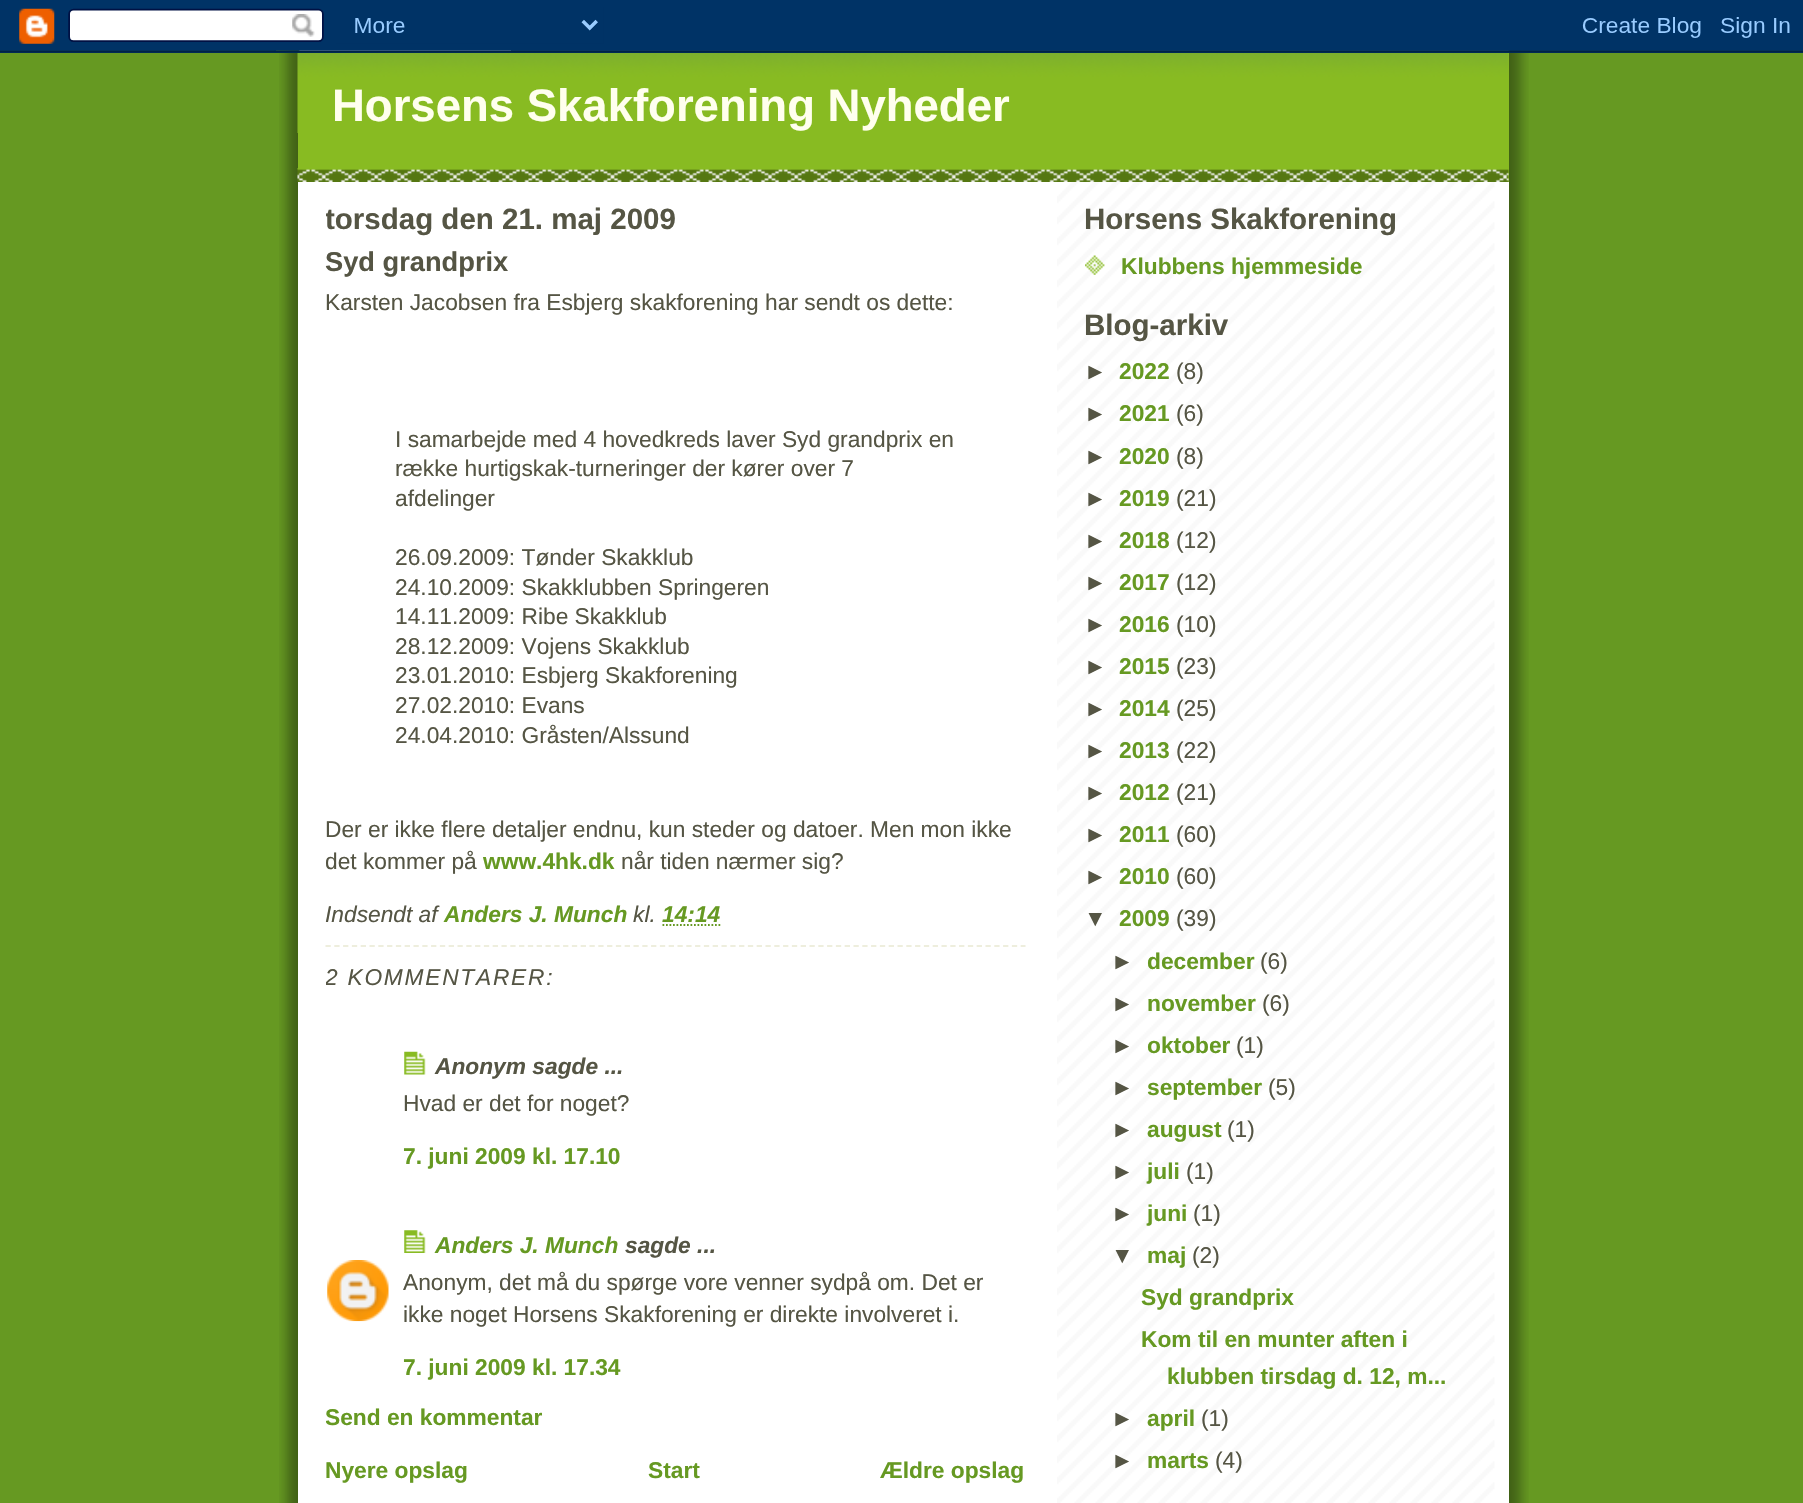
void draw(SkCanvas* c) {
SkPaint p;
p.setAntiAlias(true);
auto F=[&](const char* family, int weight, float size, bool italic = false){SkFontStyle style(weight, SkFontStyle::kNormal_Width,italic ? SkFontStyle::kItalic_Slant : SkFontStyle::kUpright_Slant);SkFont result(fontMgr->matchFamilyStyle(family, style), size);result.setSubpixel(true);return result;};
auto T=[&](const char* s, float x, float y, const SkFont& font){c->drawString(s, x, y, font, p);};
auto L=[&](const char* s, float x, float y, const SkFont& font, const SkPaint& ink, float letter, float word){std::vector<SkGlyphID> glyphs(font.countText(s, strlen(s), SkTextEncoding::kUTF8));std::vector<float> xs(glyphs.size());font.textToGlyphs(s, strlen(s), SkTextEncoding::kUTF8, glyphs);font.getXPos(glyphs, xs, x);float extra = 0;for (size_t i = 0; i < glyphs.size(); i++) {xs[i] += extra;extra += letter + word * (glyphs[i] == font.unicharToGlyph(' '));}c->drawTextBlob(SkTextBlob::MakeFromPosHGlyphs(glyphs, xs, y, font), 0, 0, ink);};
auto R=[&](float x, float y, float w, float h){c->drawRect(SkRect::MakeXYWH(x, y, w, h), p);};
auto I=[&](const char* path, float x, float y, float w, float h){auto image = SkImages::DeferredFromEncodedData(SkData::MakeFromFileName(path));c->drawImageRect(image, SkRect::MakeXYWH(x, y, w, h), SkSamplingOptions());};
auto P=[&](const char* data, bool evenOdd = false){SkPath result = *SkParsePath::FromSVGString(data);if (evenOdd) result.setFillType(SkPathFillType::kEvenOdd);return result;};
c->clear(0xff669922);
I("1.png",279,50,1250,1453);
I("2.png",0,0,1803,53);
p.setColor(0xffffffff);
R(298,182,1211,1321);
I("3.png",1057,182,452,1321);
p.setColor(0xff88bb22);
R(298,53,1211,129);
I("4.png",297,168,1212,14);
I("5.png",297,53,1212,80);
auto f1 = F("Liberation Sans",700,45.5);
p.setColor(0xffffffee);
T("Horsens Skakforening Nyheder",332,121,f1);
c->save();
c->clipRect(SkRect::MakeXYWH(326,182,700,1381));
auto f2 = F("Liberation Sans",700,29.5);
p.setColor(0xff555544);
T("torsdag den 21. maj 2009",325,229,f2);
c->restore();
auto f3 = F("Liberation Sans",700,27.25);
T("Syd grandprix",325,271,f3);
auto f4 = F("Liberation Sans",400,22.75);
T("Karsten Jacobsen fra Esbjerg skakforening har sendt os dette:",325,310,f4);
T("I samarbejde med 4 hovedkreds laver Syd grandprix en",395,447,f4);
T("række hurtigskak-turneringer der kører over 7",395,476,f4);
T("afdelinger",395,506,f4);
T("26.09.2009: Tønder Skakklub",395,565,f4);
T("24.10.2009: Skakklubben Springeren",395,595,f4);
T("14.11.2009: Ribe Skakklub",395,624,f4);
T("28.12.2009: Vojens Skakklub",395,654,f4);
T("23.01.2010: Esbjerg Skakforening",395,683,f4);
T("27.02.2010: Evans",395,713,f4);
T("24.04.2010: Gråsten/Alssund",395,743,f4);
T("Der er ikke flere detaljer endnu, kun steder og datoer. Men mon ikke",325,837,f4);
c->save();
c->clipRect(SkRect::MakeXYWH(326,182,700,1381));
T("det kommer på",325,869,f4);
c->restore();
auto f5 = F("Liberation Sans",700,22.75);
p.setColor(0xff669922);
T("www.4hk.dk",483,869,f5);
p.setColor(0xff555544);
T("når tiden nærmer sig?",621,869,f4);
auto f6 = F("Liberation Sans",400,22.75,true);
T("Indsendt af",325,922,f6);
auto f7 = F("Liberation Sans",700,22.75,true);
p.setColor(0xff669922);
T("Anders J. Munch",444,922,f7);
p.setColor(0xff555544);
T("kl.",633,922,f6);
p.setColor(0xff669922);
T("14:14",662,922,f7);
p.setStroke(true);
p.setStrokeWidth(1.8);
p.setPathEffect(SkDashPathEffect::Make({{1.75f,1.75f}}, 0));
c->drawPath(P("M662.5 925h58"),p);
p.setPathEffect(nullptr);
p.setColor(0xffeeeedd);
p.setPathEffect(SkDashPathEffect::Make({{5.25f,3.55f}}, 0));
c->drawPath(P("M325.5 946h700"),p);
p.setPathEffect(nullptr);
c->save();
c->clipRect(SkRect::MakeXYWH(326,182,700,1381));
p.setStroke(false);
p.setColor(0xff555544);
L("2 KOMMENTARER:",325,985,f6,p,1.75,0);
c->restore();
I("6.png",404,1051,22,24);
T("Anonym sagde ...",435,1074,f7);
T("Hvad er det for noget?",403,1111,f4);
p.setColor(0xff669922);
T("7. juni 2009 kl. 17.10",403,1164,f5);
I("7.png",404,1230,22,23);
T("Anders J. Munch",435,1253,f7);
p.setColor(0xff555544);
T("sagde ...",625,1253,f7);
I("8.png",327,1260,62,62);
T("Anonym, det må du spørge vore venner sydpå om. Det er",403,1290,f4);
T("ikke noget Horsens Skakforening er direkte involveret i.",403,1322,f4);
p.setColor(0xff669922);
T("7. juni 2009 kl. 17.34",403,1375,f5);
c->save();
c->clipRect(SkRect::MakeXYWH(326,182,700,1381));
T("Send en kommentar",325,1425,f5);
c->restore();
T("Nyere opslag",325,1478,f5);
T("Start",648,1478,f5);
T("Ældre opslag",880,1478,f5);
p.setColor(0xff555544);
T("Horsens Skakforening",1084,229,f2);
I("9.png",1085,255,20,20);
p.setColor(0xff669922);
T("Klubbens hjemmeside",1121,274,f5);
p.setColor(0xff555544);
T("Blog-arkiv",1084,335,f2);
T("►",1084,379,f5);
p.setColor(0xff669922);
T("2022",1119,379,f5);
p.setColor(0xff555544);
T("(8)",1176,379,f4);
T("►",1084,421,f5);
p.setColor(0xff669922);
T("2021",1119,421,f5);
p.setColor(0xff555544);
T("(6)",1176,421,f4);
T("►",1084,464,f5);
p.setColor(0xff669922);
T("2020",1119,464,f5);
p.setColor(0xff555544);
T("(8)",1176,464,f4);
T("►",1084,506,f5);
p.setColor(0xff669922);
T("2019",1119,506,f5);
p.setColor(0xff555544);
T("(21)",1176,506,f4);
T("►",1084,548,f5);
p.setColor(0xff669922);
T("2018",1119,548,f5);
p.setColor(0xff555544);
T("(12)",1176,548,f4);
T("►",1084,590,f5);
p.setColor(0xff669922);
T("2017",1119,590,f5);
p.setColor(0xff555544);
T("(12)",1176,590,f4);
T("►",1084,632,f5);
p.setColor(0xff669922);
T("2016",1119,632,f5);
p.setColor(0xff555544);
T("(10)",1176,632,f4);
T("►",1084,674,f5);
p.setColor(0xff669922);
T("2015",1119,674,f5);
p.setColor(0xff555544);
T("(23)",1176,674,f4);
T("►",1084,716,f5);
p.setColor(0xff669922);
T("2014",1119,716,f5);
p.setColor(0xff555544);
T("(25)",1176,716,f4);
T("►",1084,758,f5);
p.setColor(0xff669922);
T("2013",1119,758,f5);
p.setColor(0xff555544);
T("(22)",1176,758,f4);
T("►",1084,800,f5);
p.setColor(0xff669922);
T("2012",1119,800,f5);
p.setColor(0xff555544);
T("(21)",1176,800,f4);
T("►",1084,842,f5);
p.setColor(0xff669922);
T("2011",1119,842,f5);
p.setColor(0xff555544);
T("(60)",1176,842,f4);
T("►",1084,884,f5);
p.setColor(0xff669922);
T("2010",1119,884,f5);
p.setColor(0xff555544);
T("(60)",1176,884,f4);
T("▼",1084,926,f5);
p.setColor(0xff669922);
T("2009",1119,926,f5);
p.setColor(0xff555544);
T("(39)",1176,926,f4);
T("►",1111,969,f5);
p.setColor(0xff669922);
T("december",1147,969,f5);
p.setColor(0xff555544);
T("(6)",1260,969,f4);
T("►",1111,1011,f5);
p.setColor(0xff669922);
T("november",1147,1011,f5);
p.setColor(0xff555544);
T("(6)",1262,1011,f4);
T("►",1111,1053,f5);
p.setColor(0xff669922);
T("oktober",1147,1053,f5);
p.setColor(0xff555544);
T("(1)",1236,1053,f4);
T("►",1111,1095,f5);
p.setColor(0xff669922);
T("september",1147,1095,f5);
p.setColor(0xff555544);
T("(5)",1268,1095,f4);
T("►",1111,1137,f5);
p.setColor(0xff669922);
T("august",1147,1137,f5);
p.setColor(0xff555544);
T("(1)",1227,1137,f4);
T("►",1111,1179,f5);
p.setColor(0xff669922);
T("juli",1147,1179,f5);
p.setColor(0xff555544);
T("(1)",1186,1179,f4);
T("►",1111,1221,f5);
p.setColor(0xff669922);
T("juni",1147,1221,f5);
p.setColor(0xff555544);
T("(1)",1193,1221,f4);
T("▼",1111,1263,f5);
p.setColor(0xff669922);
T("maj",1147,1263,f5);
p.setColor(0xff555544);
T("(2)",1192,1263,f4);
p.setColor(0xff669922);
T("Syd grandprix",1141,1305,f5);
T("Kom til en munter aften i",1141,1347,f5);
T("klubben tirsdag d. 12, m...",1167,1384,f5);
p.setColor(0xff555544);
T("►",1111,1426,f5);
p.setColor(0xff669922);
T("april",1147,1426,f5);
p.setColor(0xff555544);
T("(1)",1201,1426,f4);
T("►",1111,1468,f5);
p.setColor(0xff669922);
T("marts",1147,1468,f5);
p.setColor(0xff555544);
T("(4)",1215,1468,f4);
}
